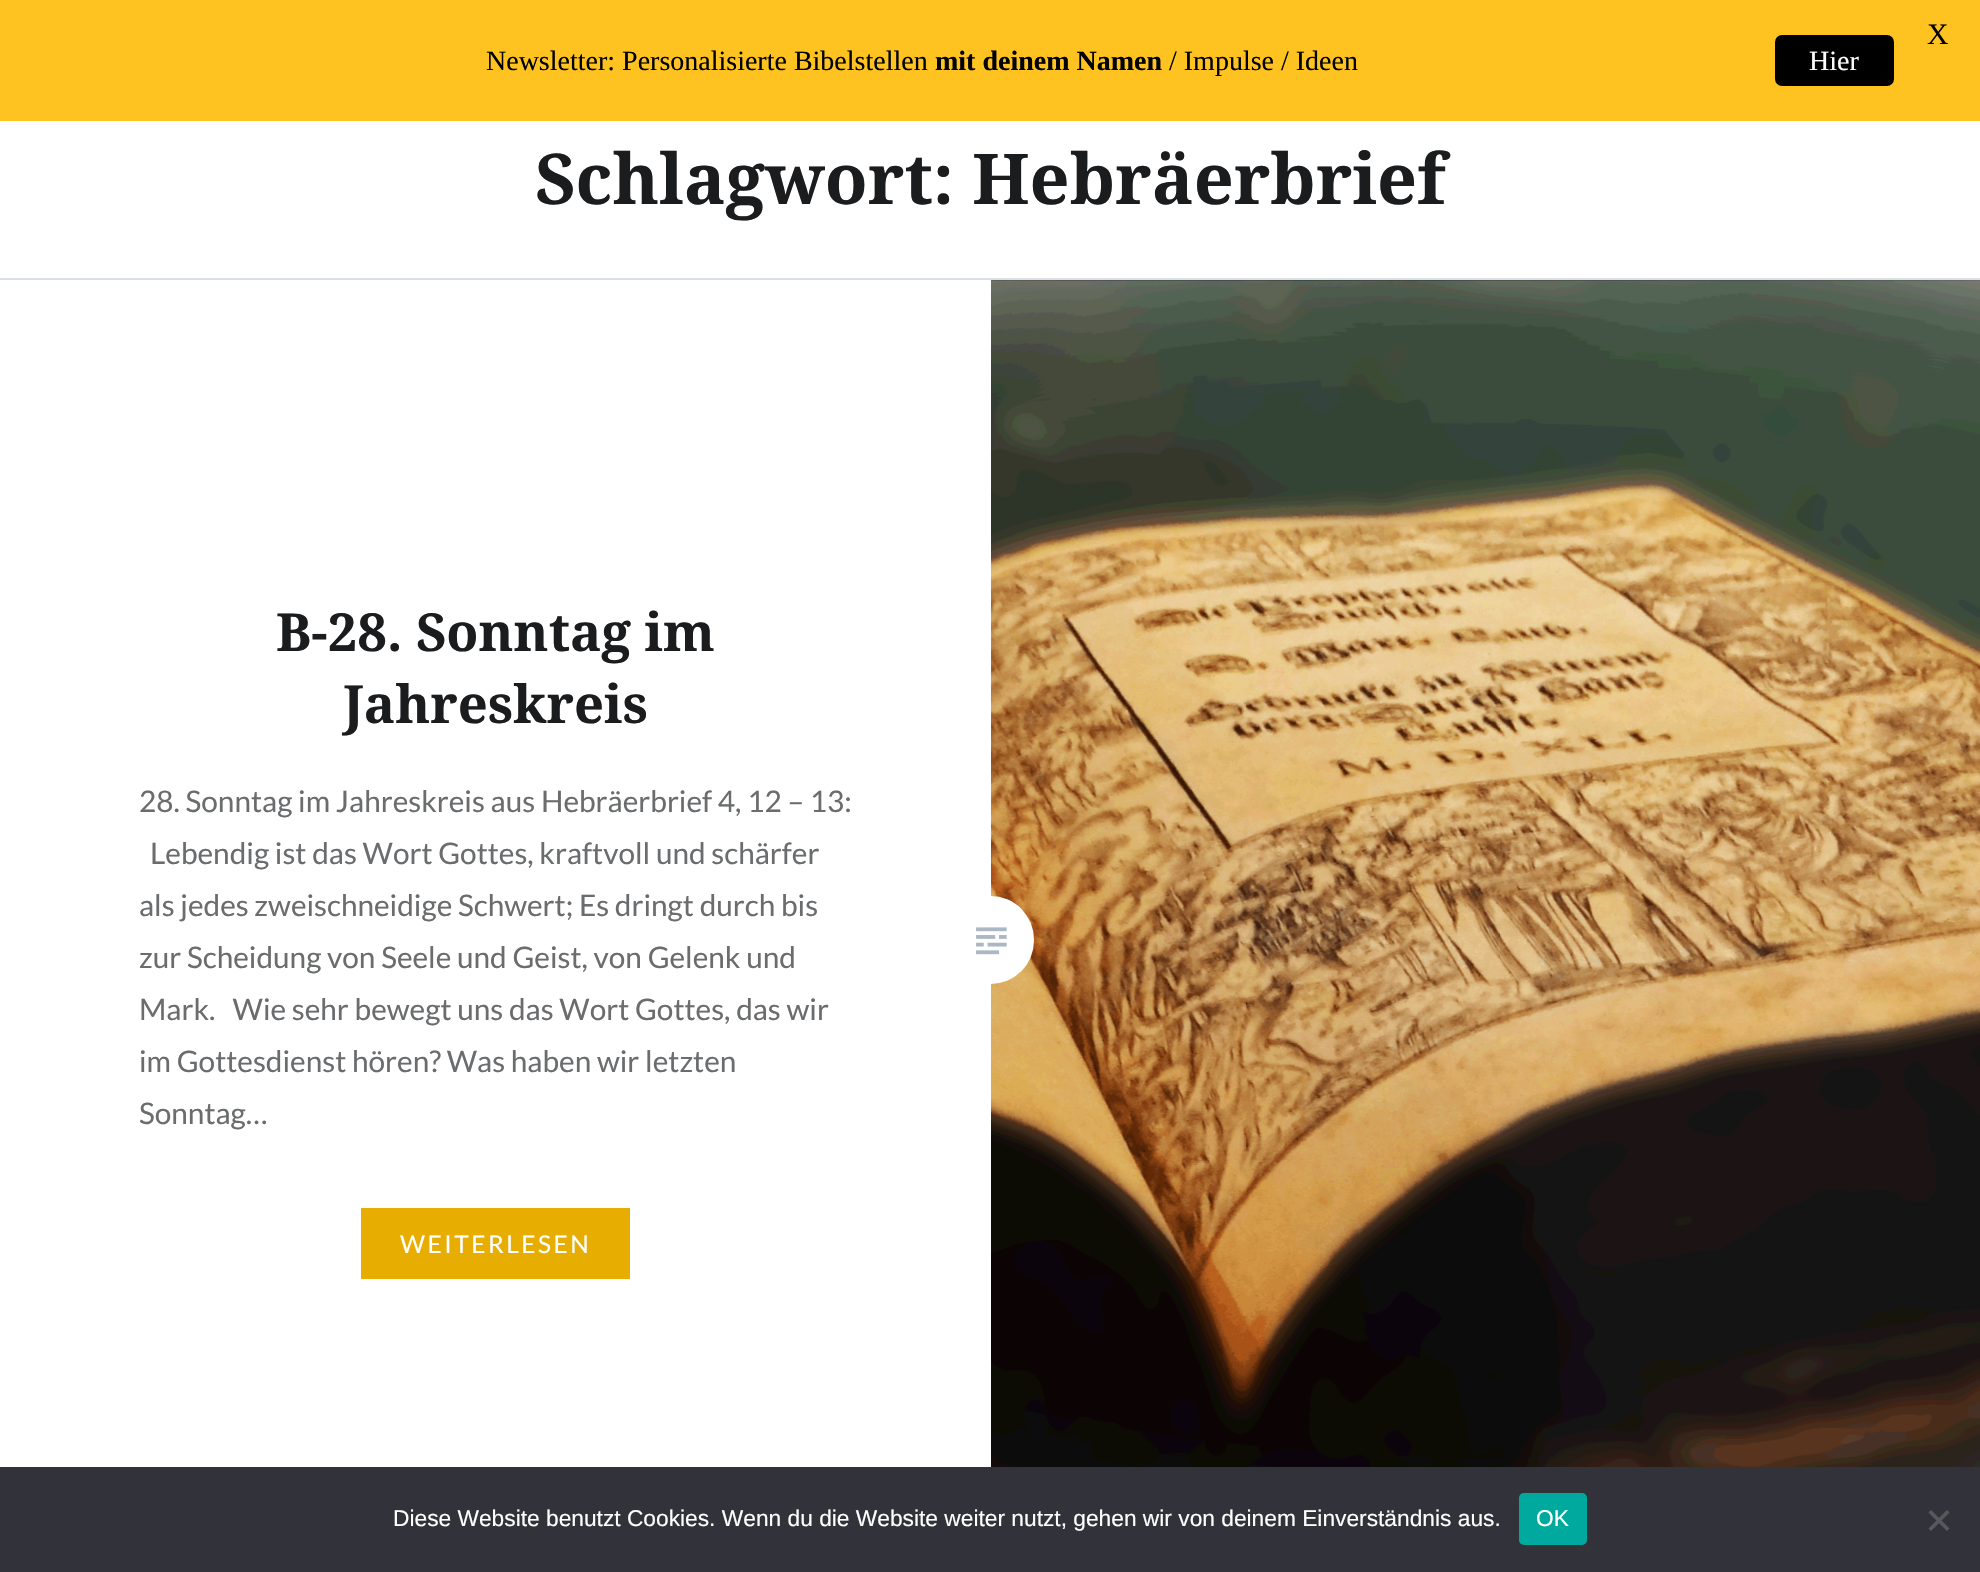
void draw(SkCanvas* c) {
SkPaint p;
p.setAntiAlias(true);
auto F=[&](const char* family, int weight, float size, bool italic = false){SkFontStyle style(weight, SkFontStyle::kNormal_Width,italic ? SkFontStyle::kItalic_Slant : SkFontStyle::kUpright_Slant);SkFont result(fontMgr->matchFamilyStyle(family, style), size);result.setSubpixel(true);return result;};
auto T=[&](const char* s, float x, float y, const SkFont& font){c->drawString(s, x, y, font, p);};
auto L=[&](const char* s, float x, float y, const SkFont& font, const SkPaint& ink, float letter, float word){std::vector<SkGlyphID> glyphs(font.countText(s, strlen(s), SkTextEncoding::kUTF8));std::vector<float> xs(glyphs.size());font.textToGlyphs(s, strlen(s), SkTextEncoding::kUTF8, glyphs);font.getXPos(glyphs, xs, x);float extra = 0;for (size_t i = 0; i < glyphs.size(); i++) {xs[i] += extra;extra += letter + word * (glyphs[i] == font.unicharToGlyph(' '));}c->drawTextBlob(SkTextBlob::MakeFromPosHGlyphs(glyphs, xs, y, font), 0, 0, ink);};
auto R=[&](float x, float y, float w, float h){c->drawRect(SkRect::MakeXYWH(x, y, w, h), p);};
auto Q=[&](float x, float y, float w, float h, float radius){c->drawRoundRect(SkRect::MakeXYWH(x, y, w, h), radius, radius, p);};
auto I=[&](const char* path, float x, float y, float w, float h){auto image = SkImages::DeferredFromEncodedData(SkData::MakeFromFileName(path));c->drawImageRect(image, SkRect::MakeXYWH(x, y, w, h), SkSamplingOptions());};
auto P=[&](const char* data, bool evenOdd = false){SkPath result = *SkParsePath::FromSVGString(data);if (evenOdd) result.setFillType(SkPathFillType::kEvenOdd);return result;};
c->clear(0xffffffff);
p.setColor(0xffffc321);
R(0,0,1980,121);
auto f1 = F("Liberation Serif",400,29.75);
p.setColor(0xff000000);
T("X",1927,44,f1);
auto f2 = F("Liberation Serif",400,28);
T("Newsletter: Personalisierte Bibelstellen",486,70,f2);
auto f3 = F("Liberation Serif",700,28);
T("mit deinem Namen",935,70,f3);
T("/ Impulse / Ideen",1169,70,f2);
Q(1775,35,119,51,7);
p.setColor(0xffffffff);
T("Hier",1809,70,f2);
p.setColor(0xffd9dfe5);
R(0,278,1980,2);
auto f4 = F("Noto Serif",700,70);
p.setColor(0xff1a1c1e);
T("Schlagwort: Hebräerbrief",535,204,f4);
auto f5 = F("Noto Serif",700,52.5);
T("B-28. Sonntag im",276,651,f5);
T("Jahreskreis",343,723,f5);
auto f6 = F("Lato",400,29.75);
p.setColor(0xff6a6c6e);
T("28. Sonntag im Jahreskreis aus Hebräerbrief 4, 12 – 13:",139,812,f6);
T("Lebendig ist das Wort Gottes, kraftvoll und schärfer",150,864,f6);
T("als jedes zweischneidige Schwert; Es dringt durch bis",139,916,f6);
T("zur Scheidung von Seele und Geist, von Gelenk und",139,968,f6);
T("Mark.   Wie sehr bewegt uns das Wort Gottes, das wir",139,1020,f6);
T("im Gottesdienst hören? Was haben wir letzten",139,1072,f6);
T("Sonntag…",139,1124,f6);
p.setColor(0xffe7ae01);
R(361,1208,269,71);
auto f7 = F("Lato",400,24.5);
p.setColor(0xffffffff);
L("WEITERLESEN",400,1253,f7,p,2.5,0);
I("2.png",991,280,989,1187);
Q(947,896,87,88,43.5);
I("1.png",976,927,31,28);
p.setColor(0xff32323a);
R(0,1467,1980,105);
auto f8 = F("Liberation Sans",400,22.75);
p.setColor(0xffffffff);
T("Diese Website benutzt Cookies. Wenn du die Website weiter nutzt, gehen wir von deinem Einverständnis aus.",393,1526,f8);
p.setColor(0xff00a99d);
Q(1519,1493,68,52,5);
p.setColor(0xffffffff);
T("OK",1536,1526,f8);
p.setColor(0xff59595d);
c->drawPath(P("M1947 1510l2.5 2.5l-18.5 18.5l-2.5-2.5z"),p);
c->drawPath(P("M1928.5 1512.5l2.5-2.5l18.5 18.5l-2.5 2.5z"),p);
}
